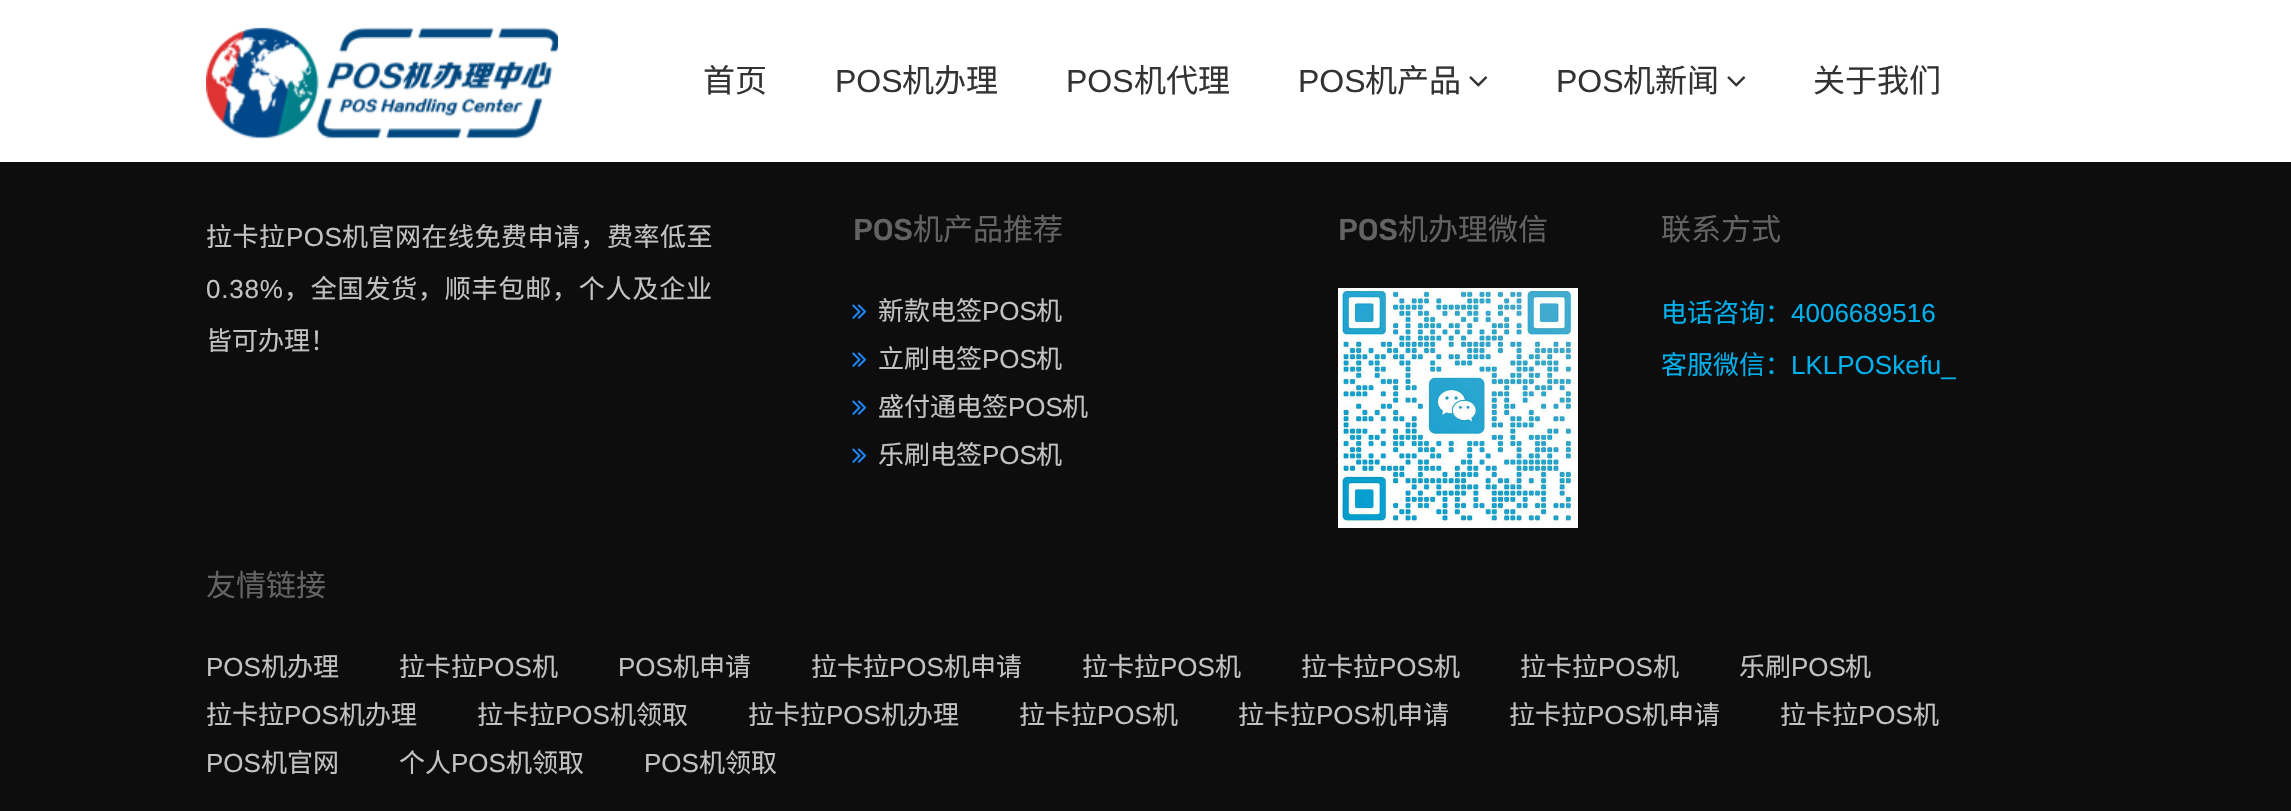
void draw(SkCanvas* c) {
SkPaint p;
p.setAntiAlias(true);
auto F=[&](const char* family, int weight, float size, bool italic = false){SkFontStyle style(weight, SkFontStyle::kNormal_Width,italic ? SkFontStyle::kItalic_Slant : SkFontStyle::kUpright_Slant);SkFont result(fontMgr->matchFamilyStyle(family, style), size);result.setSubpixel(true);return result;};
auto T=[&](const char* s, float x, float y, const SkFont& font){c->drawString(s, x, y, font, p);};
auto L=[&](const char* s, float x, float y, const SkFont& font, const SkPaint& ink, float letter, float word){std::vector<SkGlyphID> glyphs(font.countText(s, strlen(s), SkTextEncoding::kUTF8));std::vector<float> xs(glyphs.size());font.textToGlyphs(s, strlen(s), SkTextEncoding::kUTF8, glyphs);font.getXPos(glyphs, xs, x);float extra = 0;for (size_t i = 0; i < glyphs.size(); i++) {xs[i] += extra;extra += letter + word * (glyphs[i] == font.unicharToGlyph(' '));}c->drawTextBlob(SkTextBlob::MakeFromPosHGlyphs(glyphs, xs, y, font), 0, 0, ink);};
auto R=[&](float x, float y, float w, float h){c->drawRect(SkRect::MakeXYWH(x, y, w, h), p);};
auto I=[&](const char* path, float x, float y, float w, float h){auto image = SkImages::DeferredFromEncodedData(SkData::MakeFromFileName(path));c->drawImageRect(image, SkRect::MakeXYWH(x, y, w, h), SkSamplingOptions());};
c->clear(0xff0d0d0d);
p.setColor(0xffffffff);
R(0,0,2291,162);
I("1.png",206,27,352,112);
auto f1 = F("Noto Sans CJK SC",400,32);
p.setColor(0xff333333);
T("首页",703,92,f1);
auto f2 = F("Liberation Sans",400,32);
T("POS",835,92,f2);
T("机办理",902,92,f1);
T("POS",1066,92,f2);
T("机代理",1134,92,f1);
T("POS",1298,92,f2);
T("机产品",1365,92,f1);
I("2.png",1469,76,19,11);
T("POS",1556,92,f2);
T("机新闻",1623,92,f1);
I("2.png",1727,76,19,11);
T("关于我们",1813,92,f1);
auto f3 = F("Noto Sans CJK SC",400,26);
p.setColor(0xffc2c2c2);
L("拉卡拉",206,246,f3,p,.5,0);
auto f4 = F("Liberation Sans",400,26);
L("POS",286,246,f4,p,.5,0);
L("机官网在线免费申请，费率低至",342,246,f3,p,.5,0);
L("0.38%",206,298,f4,p,.8,0);
L("，全国发货，顺丰包邮，个人及企业",284,298,f3,p,.8,0);
T("皆可办理！",206,350,f3);
auto f5 = F("Rubik",500,30);
p.setColor(0xff636363);
T("POS",853,240,f5);
auto f6 = F("Noto Sans CJK SC",400,30);
T("机产品推荐",913,240,f6);
I("3.png",852,304,15,15);
p.setColor(0xffc2c2c2);
T("新款电签",878,320,f3);
T("POS",982,320,f4);
T("机",1036,320,f3);
I("3.png",852,352,15,15);
T("立刷电签",878,368,f3);
T("POS",982,368,f4);
T("机",1036,368,f3);
I("3.png",852,400,15,15);
T("盛付通电签",878,416,f3);
T("POS",1008,416,f4);
T("机",1062,416,f3);
I("3.png",852,448,15,15);
T("乐刷电签",878,464,f3);
T("POS",982,464,f4);
T("机",1036,464,f3);
p.setColor(0xff636363);
T("POS",1338,240,f5);
T("机办理微信",1398,240,f6);
I("4.png",1338,288,240,240);
T("联系方式",1661,240,f6);
p.setColor(0xff00b0ec);
T("电话咨询：",1661,322,f3);
T("4006689516",1791,322,f4);
T("客服微信：",1661,374,f3);
T("LKLPOSkefu_",1791,374,f4);
p.setColor(0xff636363);
T("友情链接",206,596,f6);
p.setColor(0xffc2c2c2);
T("POS",206,676,f4);
T("机办理",261,676,f3);
T("拉卡拉",399,676,f3);
T("POS",477,676,f4);
T("机",532,676,f3);
T("POS",618,676,f4);
T("机申请",673,676,f3);
T("拉卡拉",811,676,f3);
T("POS",889,676,f4);
T("机申请",944,676,f3);
T("拉卡拉",1082,676,f3);
T("POS",1160,676,f4);
T("机",1215,676,f3);
T("拉卡拉",1301,676,f3);
T("POS",1379,676,f4);
T("机",1434,676,f3);
T("拉卡拉",1520,676,f3);
T("POS",1598,676,f4);
T("机",1653,676,f3);
T("乐刷",1739,676,f3);
T("POS",1791,676,f4);
T("机",1845,676,f3);
T("拉卡拉",206,724,f3);
T("POS",284,724,f4);
T("机办理",339,724,f3);
T("拉卡拉",477,724,f3);
T("POS",555,724,f4);
T("机领取",610,724,f3);
T("拉卡拉",748,724,f3);
T("POS",826,724,f4);
T("机办理",881,724,f3);
T("拉卡拉",1019,724,f3);
T("POS",1097,724,f4);
T("机",1152,724,f3);
T("拉卡拉",1238,724,f3);
T("POS",1316,724,f4);
T("机申请",1371,724,f3);
T("拉卡拉",1509,724,f3);
T("POS",1587,724,f4);
T("机申请",1642,724,f3);
T("拉卡拉",1780,724,f3);
T("POS",1858,724,f4);
T("机",1913,724,f3);
T("POS",206,772,f4);
T("机官网",261,772,f3);
T("个人",399,772,f3);
T("POS",451,772,f4);
T("机领取",506,772,f3);
T("POS",644,772,f4);
T("机领取",699,772,f3);
}
